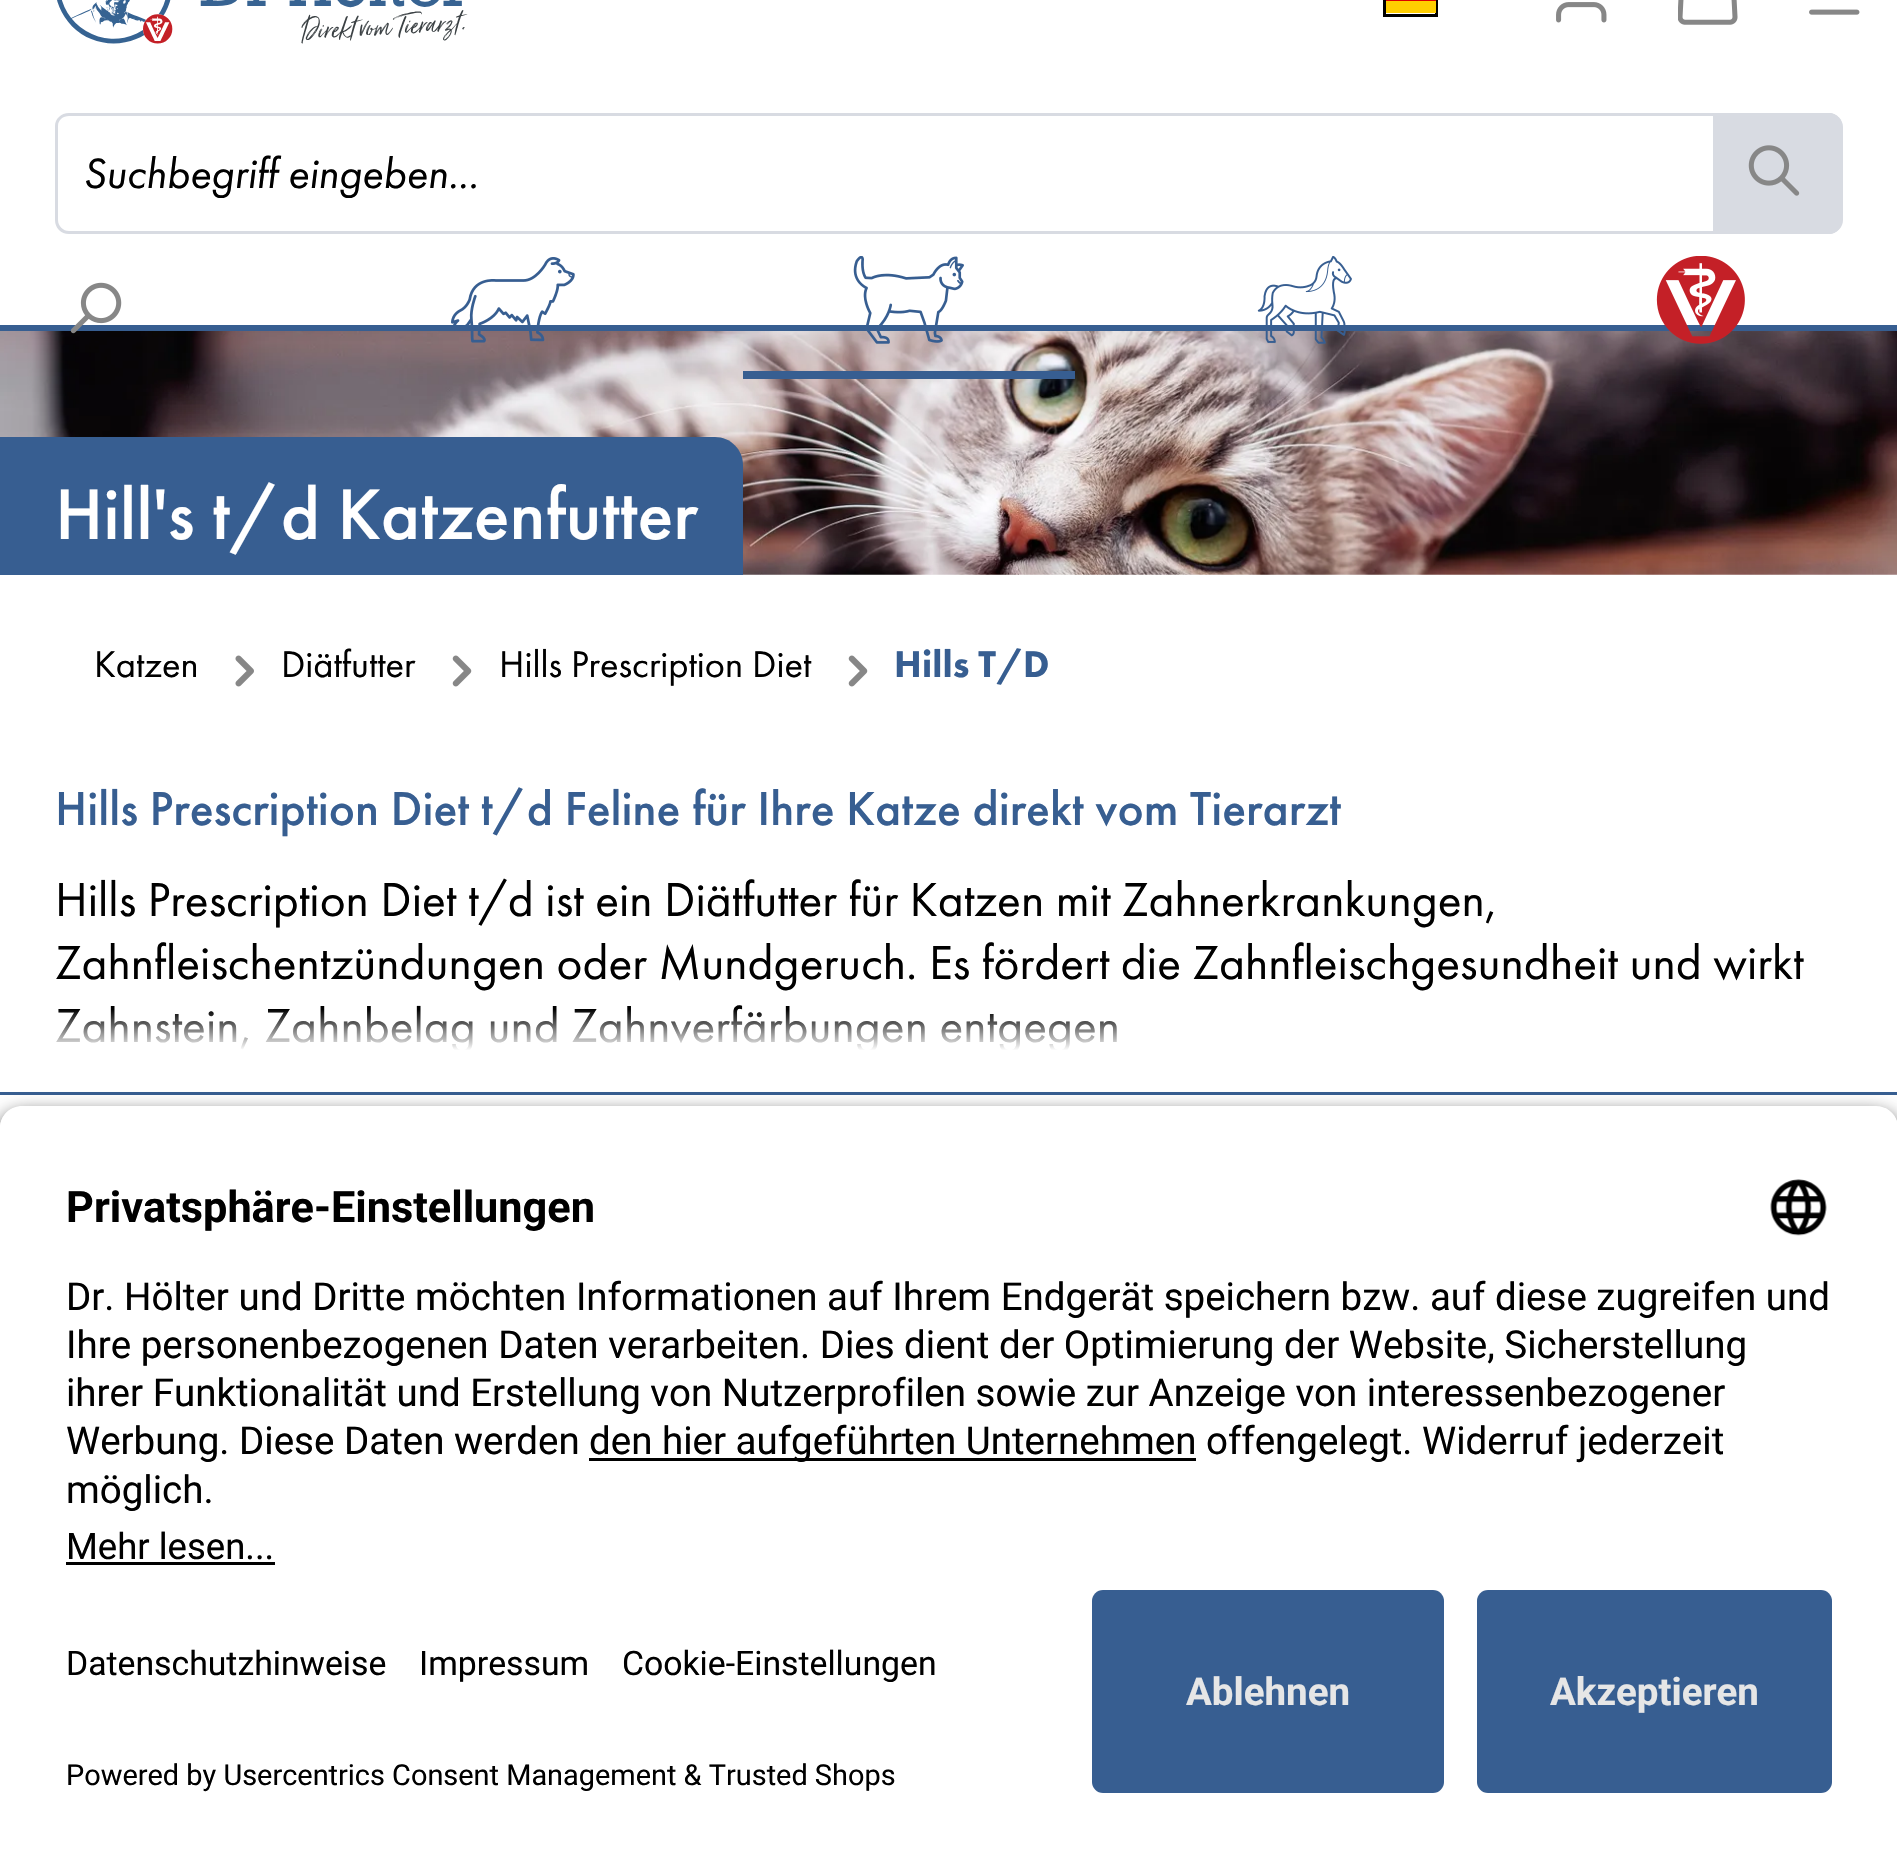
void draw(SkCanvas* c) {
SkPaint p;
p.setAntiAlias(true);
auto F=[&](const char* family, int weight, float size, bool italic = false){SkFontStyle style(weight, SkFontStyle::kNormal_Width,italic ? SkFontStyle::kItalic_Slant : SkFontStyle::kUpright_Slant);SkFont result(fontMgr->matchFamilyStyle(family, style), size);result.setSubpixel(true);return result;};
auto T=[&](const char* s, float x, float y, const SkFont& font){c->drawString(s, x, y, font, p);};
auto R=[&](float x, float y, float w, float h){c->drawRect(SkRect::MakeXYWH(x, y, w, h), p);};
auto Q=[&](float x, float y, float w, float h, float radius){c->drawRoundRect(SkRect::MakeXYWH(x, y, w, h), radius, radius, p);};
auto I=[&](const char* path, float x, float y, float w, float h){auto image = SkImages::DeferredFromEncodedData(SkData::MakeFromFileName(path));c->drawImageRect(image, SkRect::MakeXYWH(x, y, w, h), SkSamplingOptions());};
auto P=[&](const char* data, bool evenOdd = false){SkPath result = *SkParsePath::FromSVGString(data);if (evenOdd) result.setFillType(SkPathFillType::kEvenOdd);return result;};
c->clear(0xffffffff);
p.setColor(0xff375e91);
R(0,325,1897,6);
I("1.png",57,0,411,44);
p.setStroke(true);
p.setStrokeWidth(3);
p.setColor(0xff000000);
c->drawRect(SkRect::MakeXYWH(1384.5,-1.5,52,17),p);
p.setStroke(false);
p.setColor(0xffdd0000);
R(1386,0,50,1);
p.setColor(0xffffce00);
R(1386,1,50,12);
I("2.png",1556,2,51,21);
I("3.png",1678,0,60,25);
I("4.png",1809,9,51,6);
p.setColor(0xffd8dbe2);
c->drawPath(P("M69 113h1647v121h-1647c-8 0-14-6-14-14v-94c0-7 6-13 14-13zm0 3h1647v115h-1647c-6 0-11-5-11-11v-94c0-6 5-10 11-10z",true),p);
auto f1 = F("Futura PT",400,44,true);
p.setColor(0xff000000);
T("Suchbegriff eingeben...",83,188,f1);
p.setColor(0xffd8dbe2);
c->drawPath(P("M1713 113h116c7.5 0 14 6.5 14 14v93c0 7.5-6.5 14-14 14h-116z"),p);
c->drawPath(P("M1713 113h116c7 0 13 6 13 13v94c0 8-6 14-13 14h-116zm0 3h116c6 0 11 4 11 10v94c0 6-5 11-11 11h-116z",true),p);
I("5.png",1748,145,52,51);
I("11.png",0,331,1897,244);
I("6.png",70,282,52,52);
I("7.png",451,257,124,86);
p.setColor(0xff375e91);
R(743,371,332,8);
I("8.png",853,256,111,88);
I("9.png",1257,256,95,88);
I("10.png",1656,256,89,88);
R(0,437,55,138);
c->drawPath(P("M55 437h660c15.5 0 28 12.5 28 28v110h-688z"),p);
auto f2 = F("Futura PT",500,74.25);
p.setColor(0xffffffff);
T("Hill's t/d Katzenfutter",55,539,f2);
auto f3 = F("Futura PT",400,38.5);
p.setColor(0xff000000);
T("Katzen",94,677,f3);
I("12.png",235,655,19,32);
T("Diätfutter",281,677,f3);
I("13.png",452,655,20,32);
T("Hills Prescription Diet",499,677,f3);
I("13.png",848,655,20,32);
auto f4 = F("Futura PT",900,38.5);
p.setColor(0xff375e91);
T("Hills T/D",894,677,f4);
auto f5 = F("Futura PT",500,49.5);
T("Hills Prescription Diet t/d Feline für Ihre Katze direkt vom Tierarzt",55,825,f5);
auto f6 = F("Futura PT",400,49.5);
p.setColor(0xff000000);
T("Hills Prescription Diet t/d ist ein Diätfutter für Katzen mit Zahnerkrankungen,",55,916,f6);
T("Zahnfleischentzündungen oder Mundgeruch. Es fördert die Zahnfleischgesundheit und wirkt",55,979,f6);
T("Zahnstein, Zahnbelag und Zahnverfärbungen entgegen",55,1042,f6);
p.setColor(0xff375e91);
R(0,1092,1897,3);
{
const SkColor colors[] = {0x00ffffff,0xffffffff};
const float stops[] = {0,.5};
const SkPoint ends[] = {{949,1009}, {949,1092}};
p.setShader(SkGradientShader::MakeLinear(ends, colors, stops, 2, SkTileMode::kClamp));
p.setAlpha(255);
}
R(56,1010,1061,44);
c->save();
c->clipPath(P("M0 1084h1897v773h-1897zm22 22h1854c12 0 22 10 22 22v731h-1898v-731c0-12 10-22 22-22z",true),true);
p.setShader(nullptr);
p.setColor(0xcc000000);
p.setMaskFilter(SkMaskFilter::MakeBlur(kNormal_SkBlurStyle, 9.5));
c->drawRoundRect(SkRect::MakeXYWH(0,1114,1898,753),22,22,p);
p.setMaskFilter(nullptr);
c->restore();
c->save();
c->clipPath(P("M22 1106h1854c12 0 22 10 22 22v440h-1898v-440c0-12 10-22 22-22z"),true);
p.setColor(0xffffffff);
R(0,1108,1897,460);
c->restore();
auto f7 = F("Roboto",700,43.25);
p.setColor(0xff000000);
T("Privatsphäre-Einstellungen",66,1222,f7);
I("14.png",1770,1179,57,57);
auto f8 = F("Roboto",400,38.5);
T("Dr. Hölter und Dritte möchten Informationen auf Ihrem Endgerät speichern bzw. auf diese zugreifen und",66,1310,f8);
T("Ihre personenbezogenen Daten verarbeiten. Dies dient der Optimierung der Website, Sicherstellung",66,1358,f8);
T("ihrer Funktionalität und Erstellung von Nutzerprofilen sowie zur Anzeige von interessenbezogener",66,1406,f8);
T("Werbung. Diese Daten werden",66,1454,f8);
R(589,1458,607,3);
T("den hier aufgeführten Unternehmen offengelegt. Widerruf jederzeit",589,1454,f8);
T("möglich.",66,1503,f8);
auto f9 = F("Roboto",400,36.5);
T("Mehr lesen...",66,1559,f9);
R(66,1562,209,3);
auto f10 = F("Roboto",400,33.75);
T("Datenschutzhinweise",66,1675,f10);
T("Impressum",419,1675,f10);
T("Cookie-Einstellungen",622,1675,f10);
auto f11 = F("Roboto",400,28.9);
T("Powered by Usercentrics Consent Management & Trusted Shops",66,1785,f11);
p.setColor(0xff375e91);
Q(1092,1590,352,203,11);
auto f12 = F("Roboto",700,38.5);
p.setColor(0xffe6e6e6);
T("Ablehnen",1186,1705,f12);
p.setColor(0xff375e91);
Q(1477,1590,355,203,11);
p.setColor(0xffe6e6e6);
T("Akzeptieren",1550,1705,f12);
}
